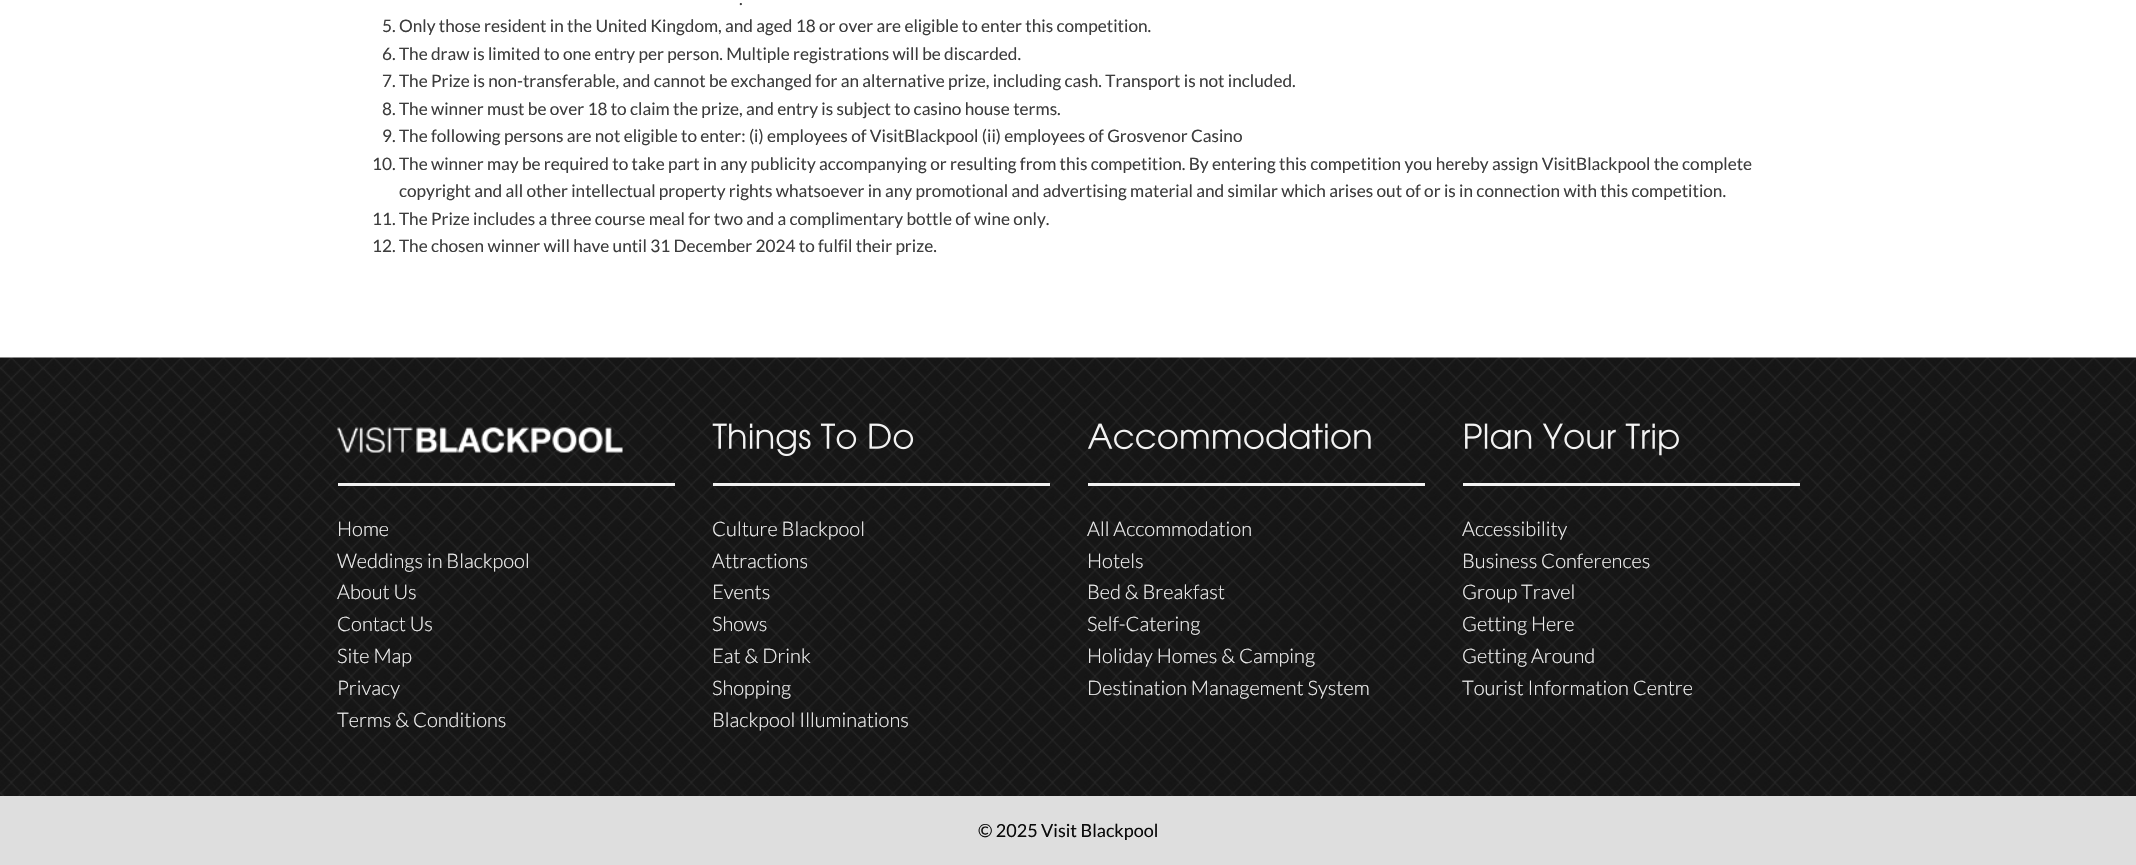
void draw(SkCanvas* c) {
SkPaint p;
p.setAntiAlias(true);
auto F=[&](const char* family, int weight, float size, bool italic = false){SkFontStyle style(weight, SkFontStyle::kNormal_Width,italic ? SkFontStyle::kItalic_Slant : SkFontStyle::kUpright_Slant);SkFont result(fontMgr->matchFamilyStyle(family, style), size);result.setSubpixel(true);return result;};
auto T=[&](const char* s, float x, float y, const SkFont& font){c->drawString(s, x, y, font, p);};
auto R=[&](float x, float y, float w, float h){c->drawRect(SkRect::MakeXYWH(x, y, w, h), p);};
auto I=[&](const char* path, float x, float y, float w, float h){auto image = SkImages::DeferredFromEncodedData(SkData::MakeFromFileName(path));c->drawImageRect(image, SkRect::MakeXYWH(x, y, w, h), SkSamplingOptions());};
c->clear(0xffffffff);
auto f1 = F("Lato",400,17.2);
p.setColor(0xff3d3d3d);
T(".",739,5,f1);
T("5. Only those resident in the United Kingdom, and aged 18 or over are eligible to enter this competition.",382,32,f1);
T("6. The draw is limited to one entry per person. Multiple registrations will be discarded.",382,60,f1);
T("7. The Prize is non-transferable, and cannot be exchanged for an alternative prize, including cash. Transport is not included.",382,87,f1);
T("8. The winner must be over 18 to claim the prize, and entry is subject to casino house terms.",382,115,f1);
T("9. The following persons are not eligible to enter: (i) employees of VisitBlackpool (ii) employees of Grosvenor Casino",382,142,f1);
T("10. The winner may be required to take part in any publicity accompanying or resulting from this competition. By entering this competition you hereby assign VisitBlackpool the complete",372,170,f1);
T("copyright and all other intellectual property rights whatsoever in any promotional and advertising material and similar which arises out of or is in connection with this competition.",399,197,f1);
T("11. The Prize includes a three course meal for two and a complimentary bottle of wine only.",372,225,f1);
T("12. The chosen winner will have until 31 December 2024 to fulfil their prize.",372,252,f1);
I("1.png",0,357,2136,439);
p.setColor(0xfff2f2f2);
R(338,483,337,3);
I("2.png",337,427,286,26);
auto f2 = F("Lato",300,20);
T("Home",337,536,f2);
T("Weddings in Blackpool",337,568,f2);
T("About Us",337,599,f2);
T("Contact Us",337,631,f2);
T("Site Map",337,663,f2);
T("Privacy",337,695,f2);
T("Terms & Conditions",337,727,f2);
R(713,483,337,3);
I("3.png",712,423,202,34);
T("Culture Blackpool",712,536,f2);
T("Attractions",712,568,f2);
T("Events",712,599,f2);
T("Shows",712,631,f2);
T("Eat & Drink",712,663,f2);
T("Shopping",712,695,f2);
T("Blackpool Illuminations",712,727,f2);
R(1088,483,337,3);
I("4.png",1088,423,283,27);
T("All Accommodation",1087,536,f2);
T("Hotels",1087,568,f2);
T("Bed & Breakfast",1087,599,f2);
T("Self-Catering",1087,631,f2);
T("Holiday Homes & Camping",1087,663,f2);
T("Destination Management System",1087,695,f2);
R(1463,483,337,3);
I("5.png",1465,423,214,33);
T("Accessibility",1462,536,f2);
T("Business Conferences",1462,568,f2);
T("Group Travel",1462,599,f2);
T("Getting Here",1462,631,f2);
T("Getting Around",1462,663,f2);
T("Tourist Information Centre",1462,695,f2);
p.setColor(0xffdedede);
R(0,796,2136,69);
auto f3 = F("Lato",400,18);
p.setColor(0xff0a0a0a);
T("© 2025 Visit Blackpool",978,837,f3);
}
